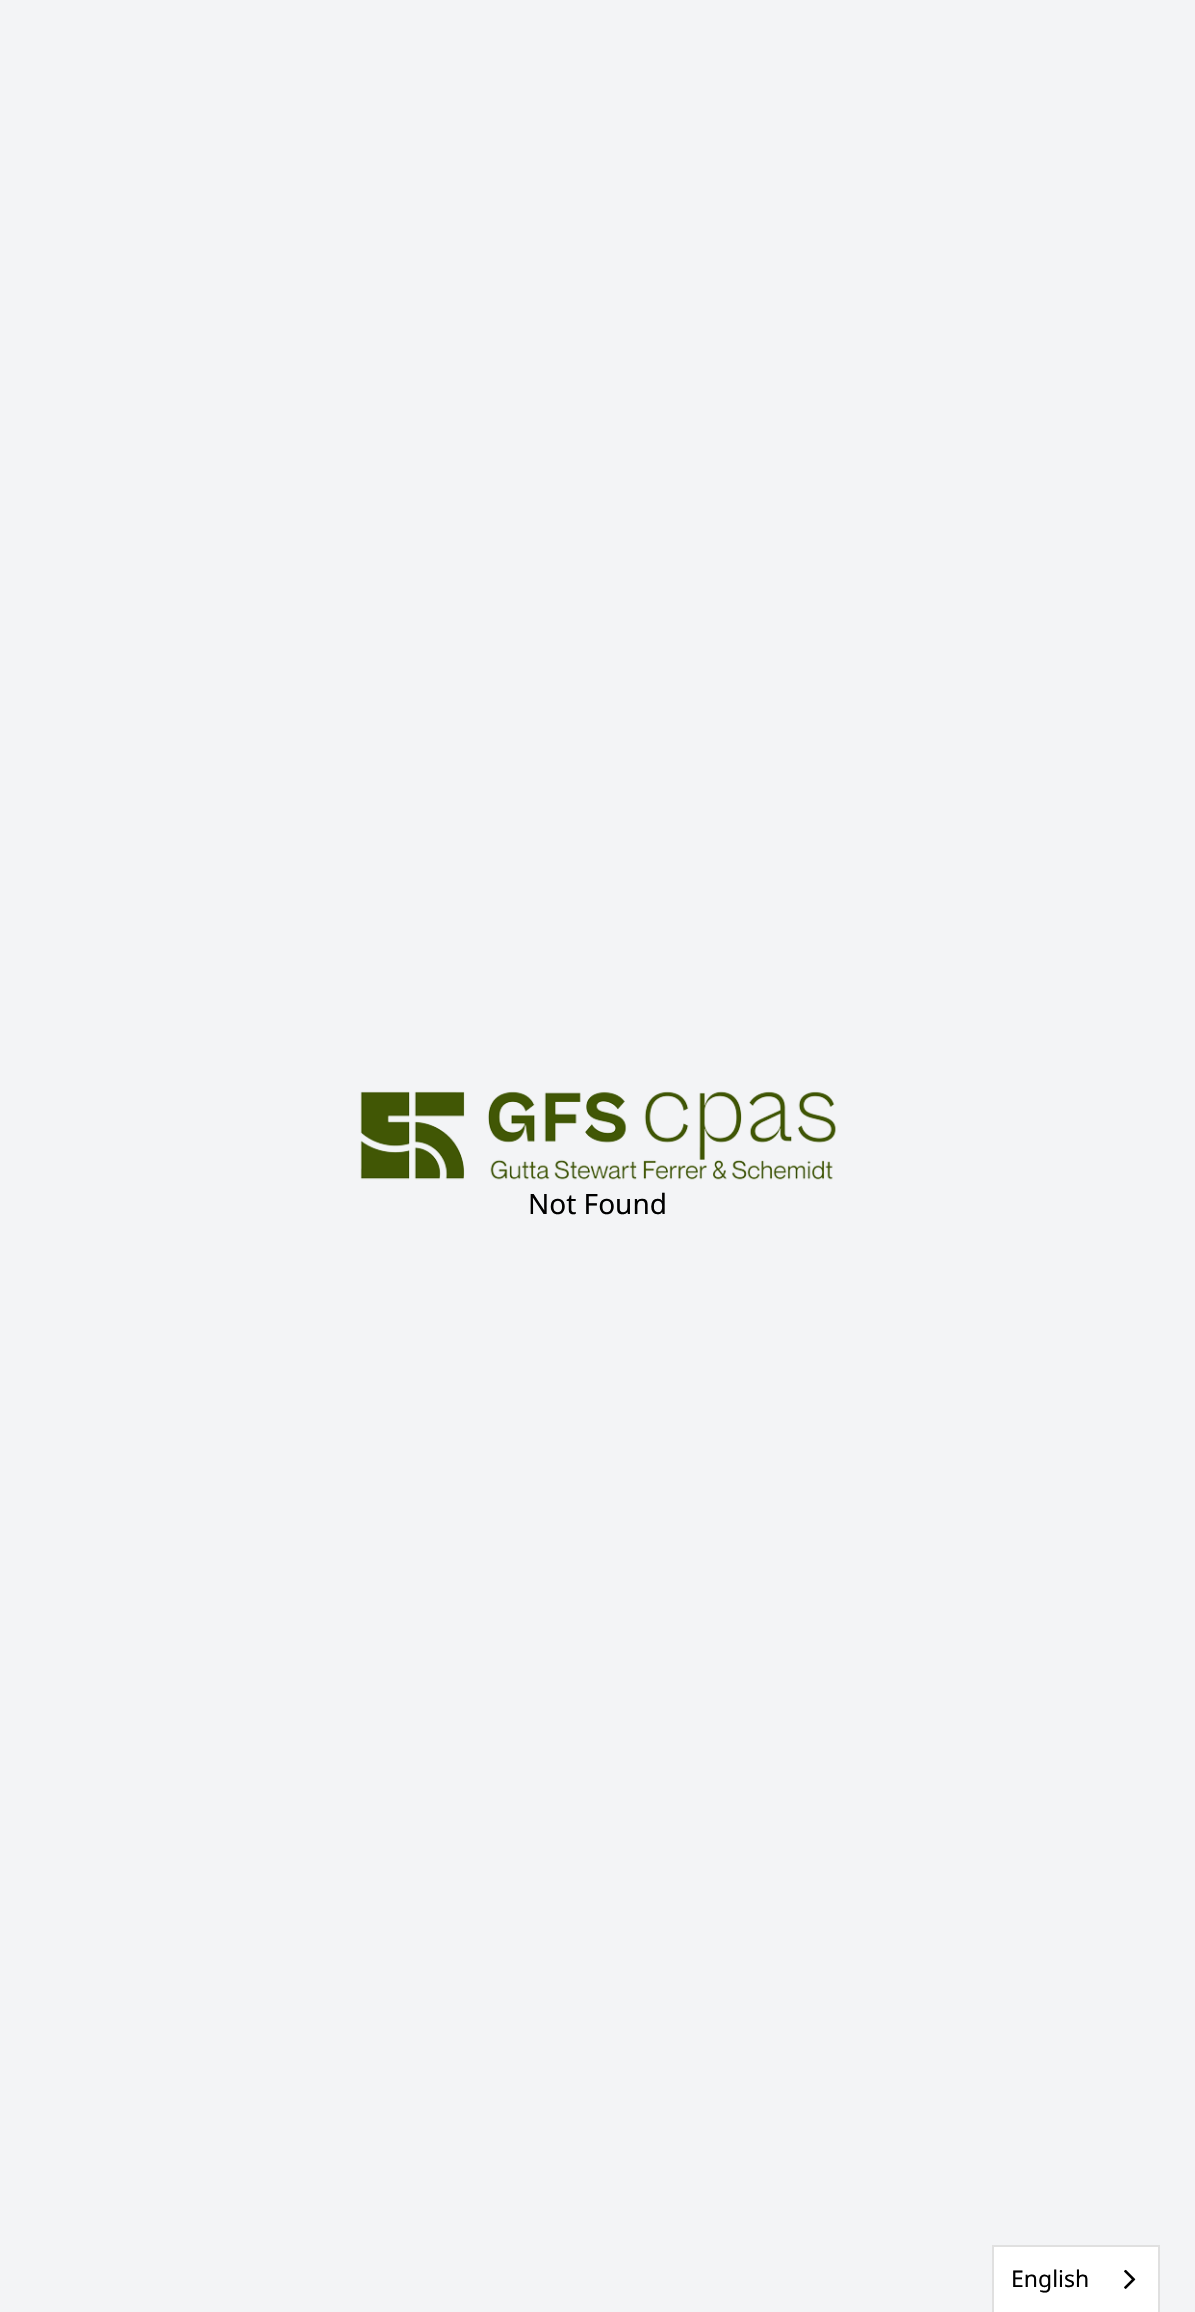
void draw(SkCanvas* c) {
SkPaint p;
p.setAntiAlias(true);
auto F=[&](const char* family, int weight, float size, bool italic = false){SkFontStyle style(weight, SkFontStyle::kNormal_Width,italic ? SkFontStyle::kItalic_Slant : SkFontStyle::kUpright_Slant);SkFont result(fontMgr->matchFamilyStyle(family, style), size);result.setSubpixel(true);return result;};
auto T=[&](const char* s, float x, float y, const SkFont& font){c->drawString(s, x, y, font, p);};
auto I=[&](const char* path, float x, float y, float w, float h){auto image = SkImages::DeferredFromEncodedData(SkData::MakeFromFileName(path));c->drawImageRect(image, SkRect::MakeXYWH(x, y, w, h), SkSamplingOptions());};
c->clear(0xfff3f4f6);
I("1.png",360,1091,476,89);
auto f1 = F("Noto Sans",400,28);
p.setColor(0xff000000);
T("Not Found",528,1214,f1);
p.setColor(0xffffffff);
c->drawRect(SkRect::MakeXYWH(993,2246,166,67),p);
p.setStroke(true);
p.setStrokeWidth(2);
p.setColor(0xffe0e0e0);
c->drawRect(SkRect::MakeXYWH(993,2246,166,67),p);
auto f2 = F("Noto Sans",400,23);
p.setStroke(false);
p.setColor(0xff000000);
T("English",1011,2287,f2);
I("2.png",1124,2269,12,20);
}
